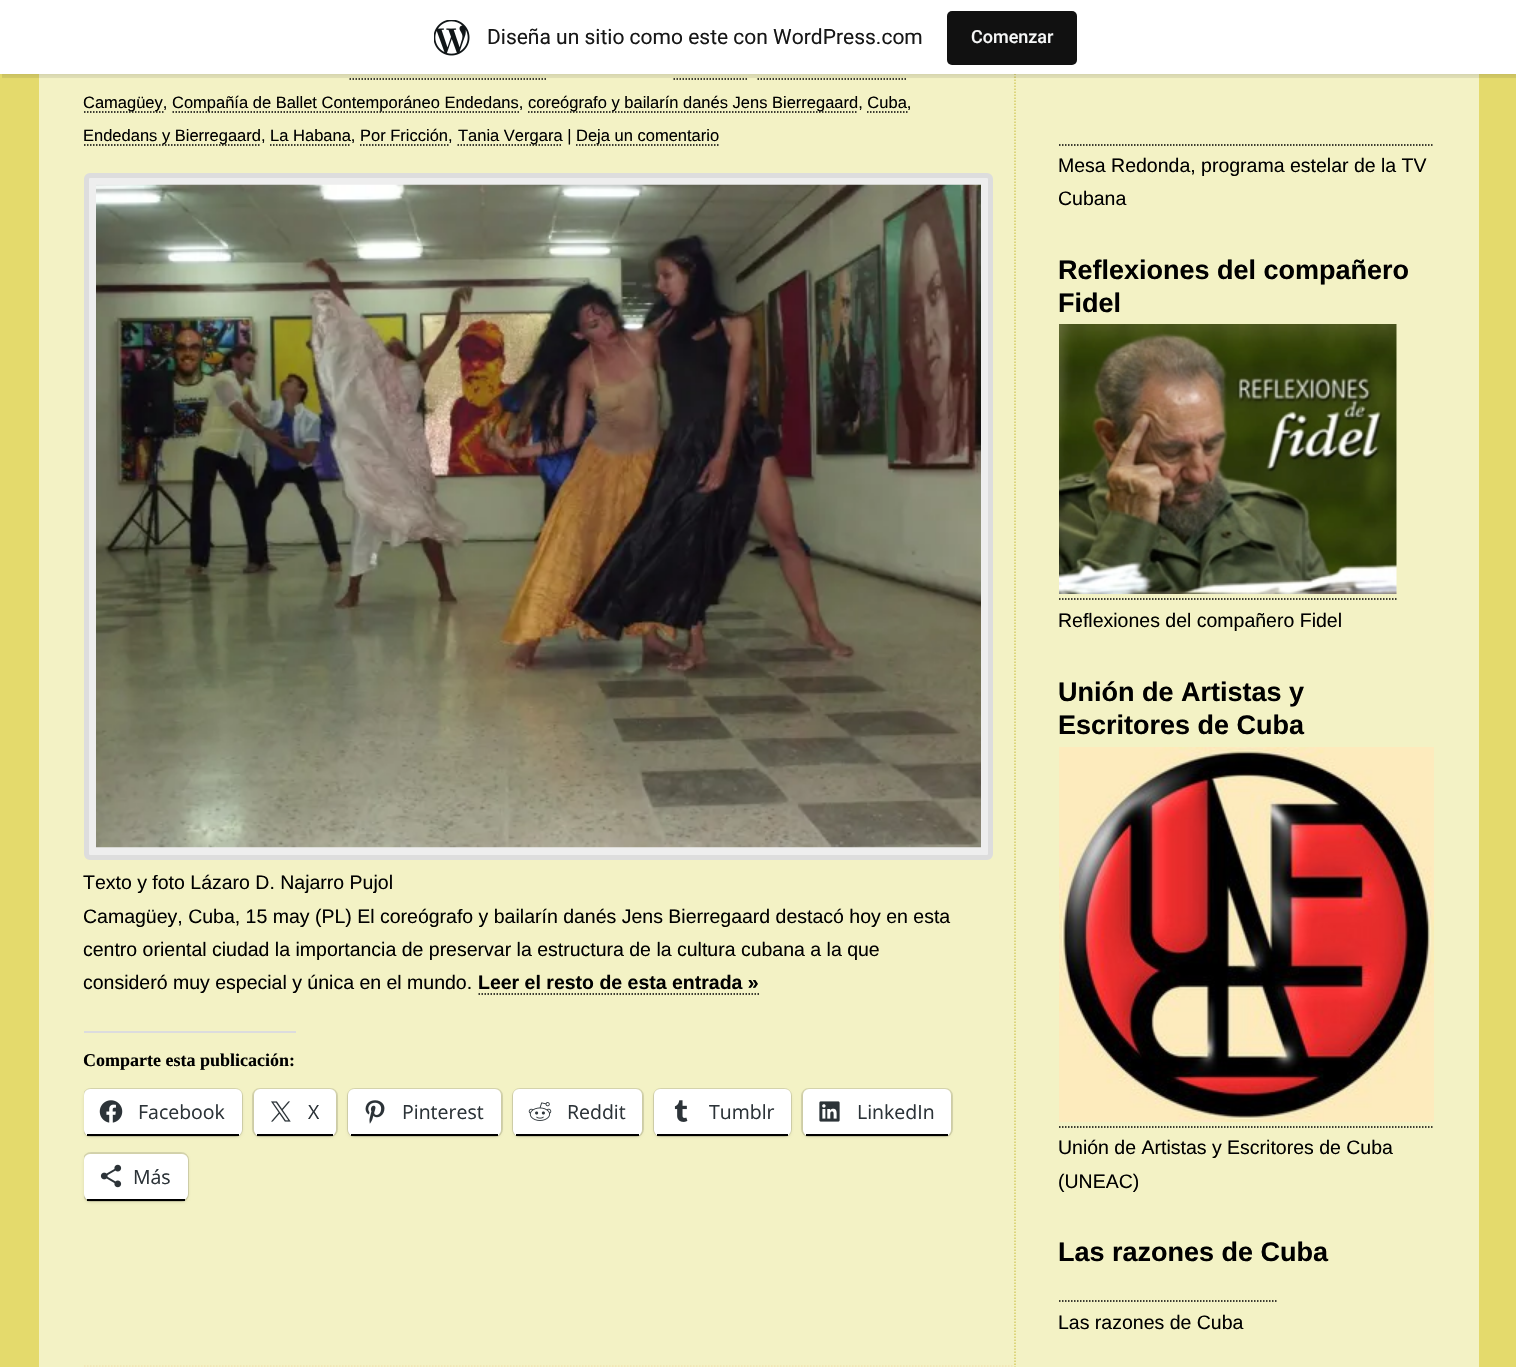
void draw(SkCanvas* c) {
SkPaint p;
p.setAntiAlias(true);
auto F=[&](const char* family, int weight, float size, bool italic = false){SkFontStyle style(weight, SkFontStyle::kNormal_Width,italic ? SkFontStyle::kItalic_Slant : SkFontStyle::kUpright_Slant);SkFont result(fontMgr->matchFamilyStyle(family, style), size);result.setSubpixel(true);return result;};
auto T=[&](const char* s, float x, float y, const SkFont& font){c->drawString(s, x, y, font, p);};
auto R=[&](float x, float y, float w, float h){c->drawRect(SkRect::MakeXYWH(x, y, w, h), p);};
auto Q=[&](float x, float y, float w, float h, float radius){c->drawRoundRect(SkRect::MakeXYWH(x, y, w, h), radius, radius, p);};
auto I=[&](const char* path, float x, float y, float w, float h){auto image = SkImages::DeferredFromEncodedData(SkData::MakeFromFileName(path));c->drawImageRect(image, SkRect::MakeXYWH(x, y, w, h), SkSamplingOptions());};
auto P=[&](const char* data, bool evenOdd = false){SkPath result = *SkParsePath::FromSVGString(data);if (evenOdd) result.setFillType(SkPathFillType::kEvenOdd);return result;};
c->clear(0xffe4da6c);
p.setColor(0xfff3f2c5);
R(39,74,1440,1293);
p.setStroke(true);
p.setStrokeWidth(1.5);
p.setColor(0xffd6cd64);
p.setPathEffect(SkDashPathEffect::Make({{1.5f,1.5f}}, 0));
c->drawPath(P("M1015-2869.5v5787"),p);
p.setPathEffect(nullptr);
p.setColor(0xff000000);
p.setPathEffect(SkDashPathEffect::Make({{1.5f,1.5f}}, 0));
c->drawPath(P("M349.5 79h196.5"),p);
p.setPathEffect(nullptr);
p.setPathEffect(SkDashPathEffect::Make({{1.5f,1.5f}}, 0));
c->drawPath(P("M673.5 79h75"),p);
p.setPathEffect(nullptr);
p.setPathEffect(SkDashPathEffect::Make({{1.5f,1.5f}}, 0));
c->drawPath(P("M757.5 79h150"),p);
p.setPathEffect(nullptr);
p.setStroke(false);
p.setColor(0x0d000000);
p.setMaskFilter(SkMaskFilter::MakeBlur(kNormal_SkBlurStyle, 1.5));
c->drawRect(SkRect::MakeXYWH(0,2,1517,73),p);
p.setMaskFilter(nullptr);
p.setColor(0x14000000);
c->drawPath(P("M2 74v4h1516v-73h-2v69z"),p);
p.setColor(0xffffffff);
R(0,0,1516,74);
I("1.png",434,20,36,36);
auto f1 = F("Roboto",400,21);
p.setColor(0xff171717);
T("Diseña un sitio como este con WordPress.com",487,44,f1);
p.setColor(0xff111111);
Q(947,11,130,54,5);
auto f2 = F("Roboto",500,18);
p.setColor(0xfff6f7f7);
T("Comenzar",971,43,f2);
p.setStroke(true);
p.setColor(0xff000000);
p.setPathEffect(SkDashPathEffect::Make({{1.5f,1.5f}}, 0));
c->drawPath(P("M84 112h79.5"),p);
p.setPathEffect(nullptr);
auto f3 = F("Liberation Sans",400,16.5);
p.setStroke(false);
T("Camagüey,",83,108,f3);
p.setStroke(true);
p.setPathEffect(SkDashPathEffect::Make({{1.5f,1.5f}}, 0));
c->drawPath(P("M172.5 112h346.5"),p);
p.setPathEffect(nullptr);
p.setStroke(false);
T("Compañía de Ballet Contemporáneo Endedans,",172,108,f3);
p.setStroke(true);
p.setPathEffect(SkDashPathEffect::Make({{1.5f,1.5f}}, 0));
c->drawPath(P("M528 112h330"),p);
p.setPathEffect(nullptr);
p.setStroke(false);
T("coreógrafo y bailarín danés Jens Bierregaard, Cuba,",528,108,f3);
p.setStroke(true);
p.setPathEffect(SkDashPathEffect::Make({{1.5f,1.5f}}, 0));
c->drawPath(P("M867 112h40.5"),p);
p.setPathEffect(nullptr);
p.setPathEffect(SkDashPathEffect::Make({{1.5f,1.5f}}, 0));
c->drawPath(P("M84 145h177"),p);
p.setPathEffect(nullptr);
p.setStroke(false);
T("Endedans y Bierregaard, La Habana, Por Fricción,",83,141,f3);
p.setStroke(true);
p.setPathEffect(SkDashPathEffect::Make({{1.5f,1.5f}}, 0));
c->drawPath(P("M270 145h81"),p);
p.setPathEffect(nullptr);
p.setPathEffect(SkDashPathEffect::Make({{1.5f,1.5f}}, 0));
c->drawPath(P("M360 145h88.5"),p);
p.setPathEffect(nullptr);
p.setPathEffect(SkDashPathEffect::Make({{1.5f,1.5f}}, 0));
c->drawPath(P("M457.5 145h105"),p);
p.setPathEffect(nullptr);
p.setStroke(false);
T("Tania Vergara |",458,141,f3);
p.setStroke(true);
p.setPathEffect(SkDashPathEffect::Make({{1.5f,1.5f}}, 0));
c->drawPath(P("M576 145h142.5"),p);
p.setPathEffect(nullptr);
p.setStroke(false);
T("Deja un comentario",576,141,f3);
p.setColor(0xffeeeeee);
c->drawRoundRect(SkRect::MakeXYWH(86.5,175.5,904,682),3.5,3.5,p);
p.setStroke(true);
p.setStrokeWidth(5);
p.setColor(0xffdddddd);
c->drawRoundRect(SkRect::MakeXYWH(86.5,175.5,904,682),3.5,3.5,p);
I("2.png",96,184,885,664);
auto f4 = F("Liberation Sans",400,19.5);
p.setStroke(false);
p.setColor(0xff000000);
T("Texto y foto Lázaro D. Najarro Pujol",83,889,f4);
T("Camagüey, Cuba, 15 may (PL) El coreógrafo y bailarín danés Jens Bierregaard destacó hoy en esta",83,923,f4);
T("centro oriental ciudad la importancia de preservar la estructura de la cultura cubana a la que",83,956,f4);
T("consideró muy especial y única en el mundo.",83,989,f4);
auto f5 = F("Liberation Sans",700,19.5);
T("Leer el resto de esta entrada »",478,989,f5);
p.setStroke(true);
p.setStrokeWidth(1.5);
p.setPathEffect(SkDashPathEffect::Make({{1.5f,1.5f}}, 0));
c->drawPath(P("M478.5 994h280.5"),p);
p.setPathEffect(nullptr);
p.setStroke(false);
p.setColor(0xffdcdcde);
R(84,1031,212,2);
auto f6 = F("Liberation Serif",700,18);
p.setColor(0xff000000);
T("Comparte esta publicación:",83,1066,f6);
c->save();
c->clipRect(SkRect::MakeXYWH(84,0,930,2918));
p.setStroke(true);
p.setStrokeWidth(2);
p.setColor(0xffd6d5ad);
c->drawRoundRect(SkRect::MakeXYWH(84,1089,158,47),7,7,p);
c->restore();
p.setStroke(false);
p.setColor(0x1f000000);
p.setMaskFilter(SkMaskFilter::MakeBlur(kNormal_SkBlurStyle, 1.5));
c->drawRoundRect(SkRect::MakeXYWH(84,1091,158,46),6,6,p);
p.setMaskFilter(nullptr);
p.setColor(0xffffffff);
Q(84,1089,158,47,6);
p.setColor(0xff000000);
R(87,1134,152,2);
I("3.png",99,1100,24,23);
auto f7 = F("Open Sans",400,19.5);
p.setColor(0xff2c3338);
T("Facebook",138,1119,f7);
p.setStroke(true);
p.setColor(0xffd6d5ad);
c->drawRoundRect(SkRect::MakeXYWH(253,1089,84,47),7,7,p);
p.setStroke(false);
p.setColor(0x1f000000);
p.setMaskFilter(SkMaskFilter::MakeBlur(kNormal_SkBlurStyle, 1.5));
c->drawRoundRect(SkRect::MakeXYWH(254,1091,82,46),6,6,p);
p.setMaskFilter(nullptr);
p.setColor(0xffffffff);
Q(254,1089,82,47,6);
p.setColor(0xff000000);
R(257,1134,76,2);
I("4.png",271,1101,20,21);
p.setColor(0xff2c3338);
T("X",308,1119,f7);
p.setStroke(true);
p.setColor(0xffd6d5ad);
c->drawRoundRect(SkRect::MakeXYWH(348,1089,154,47),7,7,p);
p.setStroke(false);
p.setColor(0x1f000000);
p.setMaskFilter(SkMaskFilter::MakeBlur(kNormal_SkBlurStyle, 1.5));
c->drawRoundRect(SkRect::MakeXYWH(348,1091,153,46),6,6,p);
p.setMaskFilter(nullptr);
p.setColor(0xffffffff);
Q(348,1089,153,47,6);
p.setColor(0xff000000);
R(351,1134,147,2);
I("5.png",365,1100,20,24);
p.setColor(0xff2c3338);
T("Pinterest",402,1119,f7);
p.setStroke(true);
p.setColor(0xffd6d5ad);
c->drawRoundRect(SkRect::MakeXYWH(513,1089,130,47),7,7,p);
p.setStroke(false);
p.setColor(0x1f000000);
p.setMaskFilter(SkMaskFilter::MakeBlur(kNormal_SkBlurStyle, 1.5));
c->drawRoundRect(SkRect::MakeXYWH(513,1091,129,46),6,6,p);
p.setMaskFilter(nullptr);
p.setColor(0xffffffff);
Q(513,1089,129,47,6);
p.setColor(0xff000000);
R(516,1134,123,2);
I("6.png",528,1102,24,19);
p.setColor(0xff2c3338);
T("Reddit",567,1119,f7);
p.setStroke(true);
p.setColor(0xffd6d5ad);
c->drawRoundRect(SkRect::MakeXYWH(654,1089,137,47),7,7,p);
p.setStroke(false);
p.setColor(0x1f000000);
p.setMaskFilter(SkMaskFilter::MakeBlur(kNormal_SkBlurStyle, 1.5));
c->drawRoundRect(SkRect::MakeXYWH(654,1091,137,46),6,6,p);
p.setMaskFilter(nullptr);
p.setColor(0xffffffff);
Q(654,1089,137,47,6);
p.setColor(0xff000000);
R(657,1134,131,2);
I("7.png",674,1100,14,22);
p.setColor(0xff2c3338);
T("Tumblr",709,1119,f7);
p.setStroke(true);
p.setColor(0xffd6d5ad);
c->drawRoundRect(SkRect::MakeXYWH(802,1089,150,47),7,7,p);
p.setStroke(false);
p.setColor(0x1f000000);
p.setMaskFilter(SkMaskFilter::MakeBlur(kNormal_SkBlurStyle, 1.5));
c->drawRoundRect(SkRect::MakeXYWH(803,1091,148,46),6,6,p);
p.setMaskFilter(nullptr);
p.setColor(0xffffffff);
Q(803,1089,148,47,6);
p.setColor(0xff000000);
R(806,1134,142,2);
I("8.png",819,1101,21,21);
p.setColor(0xff2c3338);
T("LinkedIn",857,1119,f7);
c->save();
c->clipRect(SkRect::MakeXYWH(84,0,930,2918));
p.setStroke(true);
p.setColor(0xffd6d5ad);
c->drawRoundRect(SkRect::MakeXYWH(84,1153,104,48),7,7,p);
c->restore();
c->save();
c->clipPath(P("M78 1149h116v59h-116zm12 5h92c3.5 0 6 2.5 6 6v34c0 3.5-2.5 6-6 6h-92c-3.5 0-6-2.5-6-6v-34c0-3.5 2.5-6 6-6z",true),true);
p.setStroke(false);
p.setColor(0x1f000000);
p.setMaskFilter(SkMaskFilter::MakeBlur(kNormal_SkBlurStyle, 1.5));
c->drawRoundRect(SkRect::MakeXYWH(84,1155,104,47),6,6,p);
p.setMaskFilter(nullptr);
c->restore();
p.setColor(0xffffffff);
Q(84,1154,104,46,6);
p.setColor(0xff000000);
R(87,1199,98,2);
I("9.png",100,1164,22,24);
p.setColor(0xff2c3338);
T("Más",133,1184,f7);
c->save();
c->clipRect(SkRect::MakeXYWH(84,0,930,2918));
p.setStroke(true);
p.setStrokeWidth(1.5);
p.setColor(0xfff2e4b3);
p.setPathEffect(SkDashPathEffect::Make({{1.5f,1.5f}}, 0));
c->drawPath(P("M54 1366h960"),p);
p.setPathEffect(nullptr);
c->restore();
c->save();
c->clipRect(SkRect::MakeXYWH(1059,9,375,207));
p.setColor(0xff000000);
p.setPathEffect(SkDashPathEffect::Make({{1.5f,1.5f}}, 0));
c->drawPath(P("M1059 145h390"),p);
p.setPathEffect(nullptr);
c->restore();
p.setStroke(false);
T("Mesa Redonda, programa estelar de la TV",1058,172,f4);
T("Cubana",1058,205,f4);
auto f8 = F("Liberation Sans",700,27);
T("Reflexiones del compañero",1058,279,f8);
T("Fidel",1058,312,f8);
I("10.png",1059,324,338,270);
p.setStroke(true);
p.setPathEffect(SkDashPathEffect::Make({{1.5f,1.5f}}, 0));
c->drawPath(P("M1059 599h337.5"),p);
p.setPathEffect(nullptr);
p.setStroke(false);
T("Reflexiones del compañero Fidel",1058,627,f4);
T("Unión de Artistas y",1058,701,f8);
T("Escritores de Cuba",1058,734,f8);
I("11.png",1059,747,375,375);
p.setStroke(true);
p.setPathEffect(SkDashPathEffect::Make({{1.5f,1.5f}}, 0));
c->drawPath(P("M1059 1127h375"),p);
p.setPathEffect(nullptr);
p.setStroke(false);
T("Unión de Artistas y Escritores de Cuba",1058,1154,f4);
T("(UNEAC)",1058,1188,f4);
T("Las razones de Cuba",1058,1261,f8);
p.setStroke(true);
p.setPathEffect(SkDashPathEffect::Make({{1.5f,1.5f}}, 0));
c->drawPath(P("M1059 1301h219"),p);
p.setPathEffect(nullptr);
p.setStroke(false);
T("Las razones de Cuba",1058,1329,f4);
}
